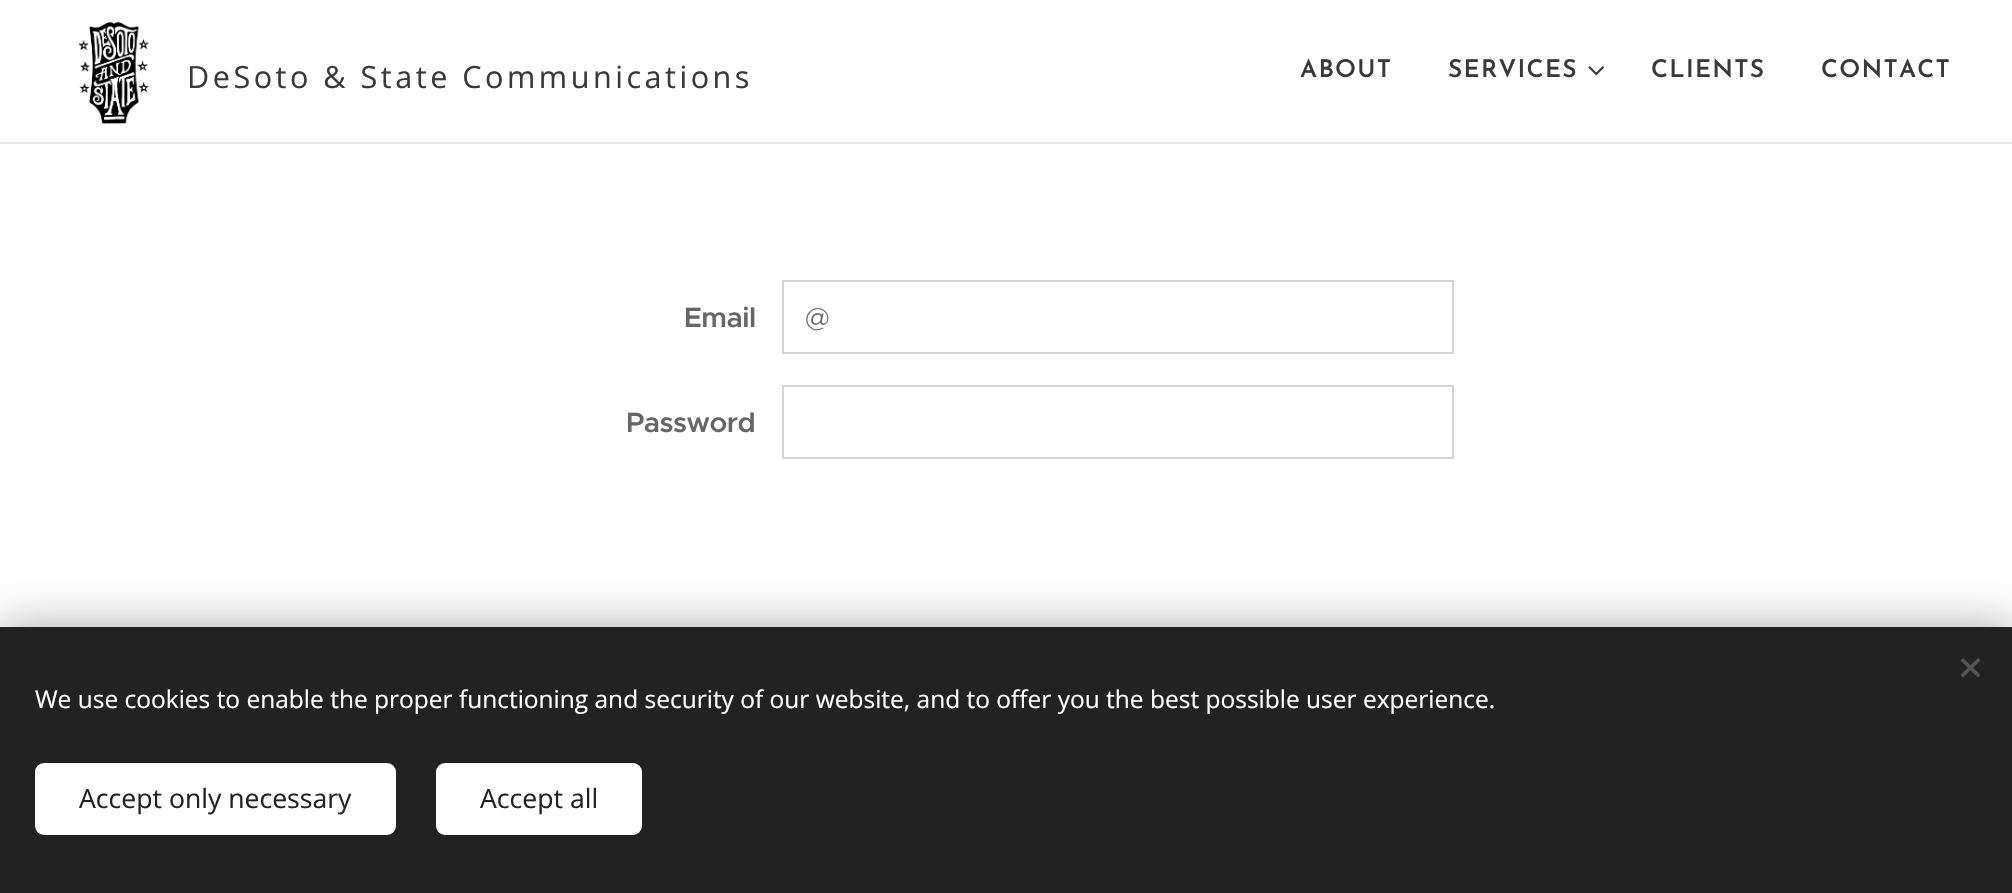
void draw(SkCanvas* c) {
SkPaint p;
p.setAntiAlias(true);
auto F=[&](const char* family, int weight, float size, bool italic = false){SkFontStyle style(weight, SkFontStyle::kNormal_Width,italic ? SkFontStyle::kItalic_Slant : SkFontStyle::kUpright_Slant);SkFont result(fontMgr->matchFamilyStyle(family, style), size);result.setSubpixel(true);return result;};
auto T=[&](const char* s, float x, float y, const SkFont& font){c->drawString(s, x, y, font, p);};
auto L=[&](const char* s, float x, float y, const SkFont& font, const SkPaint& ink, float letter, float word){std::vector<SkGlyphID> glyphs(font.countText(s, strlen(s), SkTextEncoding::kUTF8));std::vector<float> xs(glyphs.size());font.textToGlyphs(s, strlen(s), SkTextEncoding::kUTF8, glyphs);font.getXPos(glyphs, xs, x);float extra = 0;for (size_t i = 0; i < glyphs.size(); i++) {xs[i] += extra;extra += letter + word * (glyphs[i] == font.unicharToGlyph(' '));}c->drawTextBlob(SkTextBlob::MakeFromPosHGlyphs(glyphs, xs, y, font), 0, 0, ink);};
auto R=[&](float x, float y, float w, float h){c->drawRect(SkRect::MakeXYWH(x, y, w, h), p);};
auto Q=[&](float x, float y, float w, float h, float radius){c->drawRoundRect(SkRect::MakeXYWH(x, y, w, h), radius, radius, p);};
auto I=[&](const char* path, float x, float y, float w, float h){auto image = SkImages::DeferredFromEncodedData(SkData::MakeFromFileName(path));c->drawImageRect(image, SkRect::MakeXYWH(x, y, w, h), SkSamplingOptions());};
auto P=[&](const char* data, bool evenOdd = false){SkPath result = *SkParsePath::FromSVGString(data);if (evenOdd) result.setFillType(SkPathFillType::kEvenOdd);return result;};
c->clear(0xffffffff);
I("1.png",78,22,71,103);
auto f1 = F("Open Sans",400,30.6);
p.setColor(0xff393939);
L("DeSoto & State Communications",187,88,f1,p,3.5,0);
auto f2 = F("Josefin Sans",600,24.5);
L("ABOUT",1300,77,f2,p,1.25,0);
L("SERVICES",1448,77,f2,p,1.25,0);
I("2.png",1588,66,16,10);
L("CLIENTS",1651,77,f2,p,1.25,0);
L("CONTACT",1821,77,f2,p,1.25,0);
p.setColor(0xffe8e8e8);
R(0,142,2012,2);
auto f3 = F("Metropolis",600,28);
p.setColor(0xff666666);
L("Email",684,327,f3,p,-.5,0);
p.setStroke(true);
p.setStrokeWidth(2);
p.setColor(0xffd4d4d4);
c->drawRect(SkRect::MakeXYWH(783,281,670,72),p);
auto f4 = F("Metropolis",300,28);
p.setStroke(false);
p.setColor(0xff666666);
T("@",805,327,f4);
L("Password",626,432,f3,p,-.5,0);
p.setStroke(true);
p.setColor(0xffd4d4d4);
c->drawRect(SkRect::MakeXYWH(783,386,670,72),p);
p.setStroke(false);
p.setColor(0x54000000);
p.setMaskFilter(SkMaskFilter::MakeBlur(kNormal_SkBlurStyle, 22));
c->drawRect(SkRect::MakeXYWH(0,627,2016,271),p);
p.setMaskFilter(nullptr);
p.setColor(0xff222222);
R(0,627,2012,266);
p.setColor(0xff555555);
c->drawPath(P("M1960.5 675l17.5-17l2.5 2.5l-17.5 17z"),p);
c->drawPath(P("M1963 658l17.5 17l-2.5 2.5l-17.5-17z"),p);
auto f5 = F("Open Sans",400,24.5);
p.setColor(0xffffffff);
T("We use cookies to enable the proper functioning and security of our website, and to offer you the best possible user experience.",35,708,f5);
Q(35,763,361,72,9);
auto f6 = F("Open Sans",400,26.6);
p.setColor(0xff222222);
T("Accept only necessary",79,808,f6);
p.setColor(0xffffffff);
Q(436,763,206,72,9);
p.setColor(0xff222222);
T("Accept all",480,808,f6);
}
